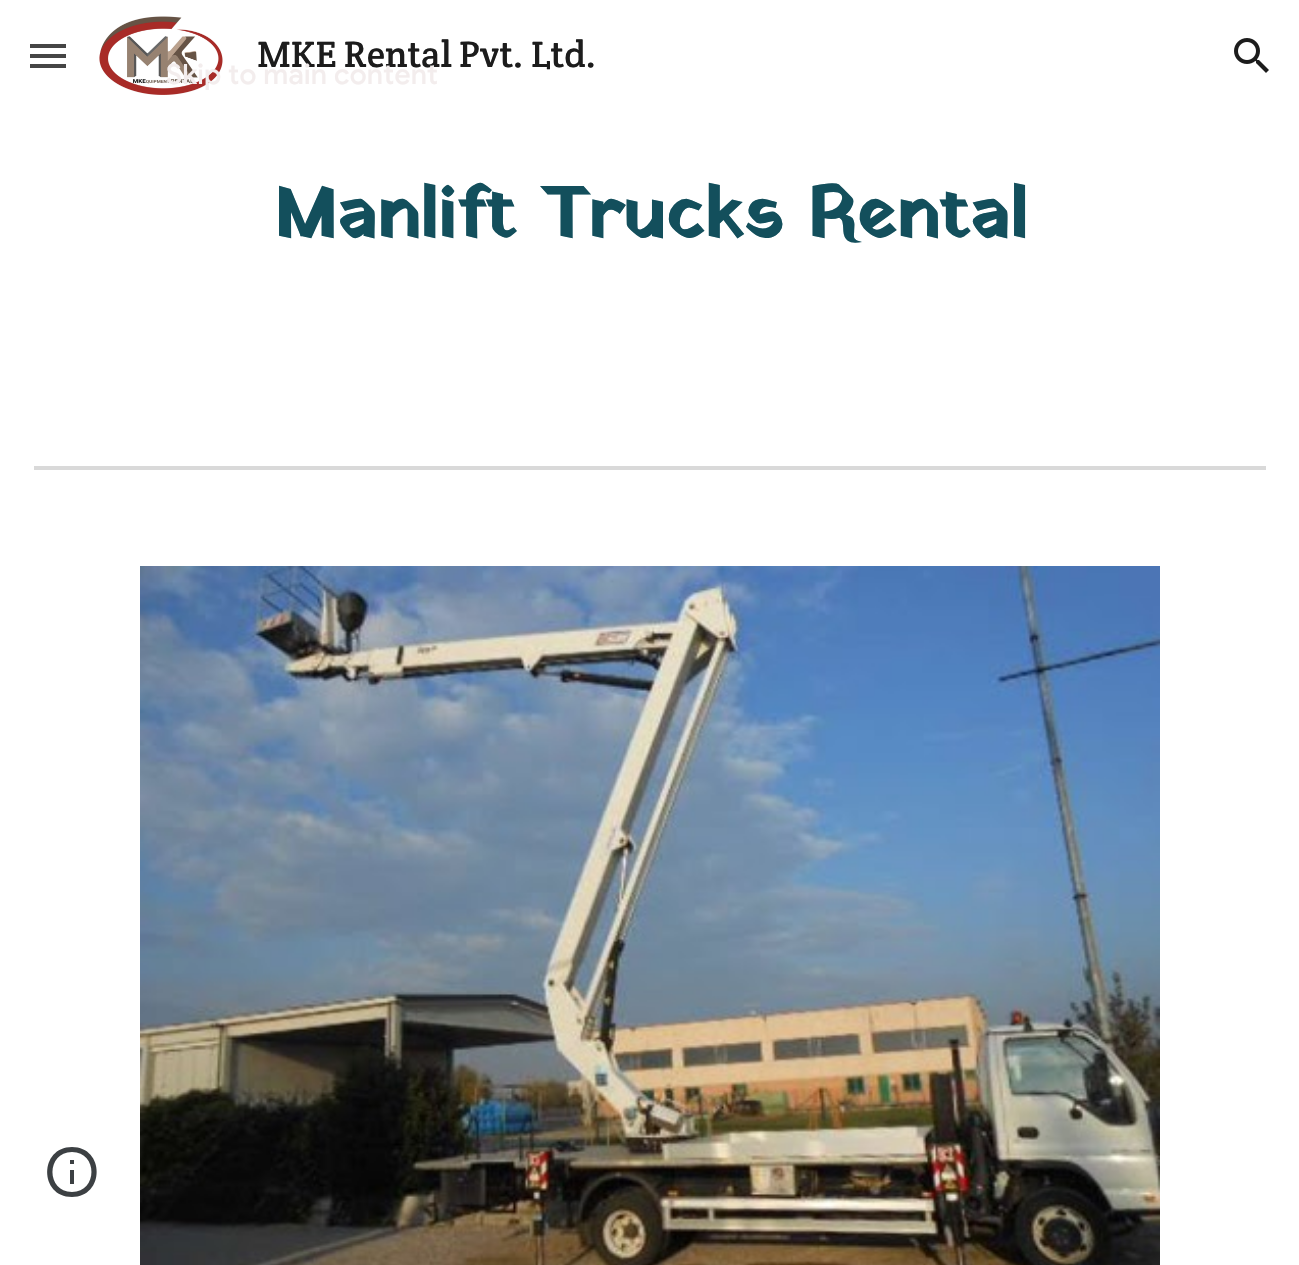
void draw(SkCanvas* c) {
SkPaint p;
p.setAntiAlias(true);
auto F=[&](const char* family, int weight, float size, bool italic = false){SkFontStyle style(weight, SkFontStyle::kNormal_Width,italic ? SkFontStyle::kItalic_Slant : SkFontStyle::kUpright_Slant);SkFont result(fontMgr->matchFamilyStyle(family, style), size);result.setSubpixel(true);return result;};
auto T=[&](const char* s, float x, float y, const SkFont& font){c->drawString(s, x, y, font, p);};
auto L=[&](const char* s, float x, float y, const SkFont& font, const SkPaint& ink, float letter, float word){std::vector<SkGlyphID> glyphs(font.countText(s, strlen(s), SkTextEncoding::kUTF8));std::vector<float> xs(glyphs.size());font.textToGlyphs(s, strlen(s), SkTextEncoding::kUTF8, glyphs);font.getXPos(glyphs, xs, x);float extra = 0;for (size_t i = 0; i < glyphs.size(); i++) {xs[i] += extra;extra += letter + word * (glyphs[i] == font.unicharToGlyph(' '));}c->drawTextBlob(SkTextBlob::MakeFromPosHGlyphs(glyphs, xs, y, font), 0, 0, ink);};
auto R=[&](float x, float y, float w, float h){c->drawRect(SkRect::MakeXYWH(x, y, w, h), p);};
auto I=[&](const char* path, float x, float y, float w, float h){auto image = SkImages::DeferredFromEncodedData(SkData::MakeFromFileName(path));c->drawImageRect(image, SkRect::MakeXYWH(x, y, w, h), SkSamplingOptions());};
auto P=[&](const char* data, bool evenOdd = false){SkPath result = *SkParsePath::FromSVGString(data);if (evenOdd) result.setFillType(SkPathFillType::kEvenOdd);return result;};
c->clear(0xffffffff);
p.setColor(0xff454545);
R(30,44,36,4);
R(30,54,36,4);
R(30,64,36,4);
I("1.png",99,16,124,79);
auto f1 = F("Crete Round",400,37.25);
p.setColor(0xff1c1c1c);
T("MKE Rental Pvt. Ltd.",257,67,f1);
I("2.png",1234,38,35,35);
auto f2 = F("Yatra One",700,72);
p.setColor(0xff134f5c);
T("Manlift Trucks Rental",274,236,f2);
p.setColor(0xffd9d9d9);
R(34,466,1232,4);
I("3.png",140,566,1020,699);
p.setColor(0xff3c4043);
c->drawPath(P("M70 1184h4v-14h-4zm2-37c-33 0-33 50 0 50c33 0 33-50 0-50zm0 45c-26 0-26-40 0-40c26 0 26 40 0 40zm-2-28h4v-4h-4z"),p);
auto f3 = F("Google Sans",500,28);
p.setColor(0xfff3eded);
L("Skip to main content",166,84,f3,p,.25,0);
}
